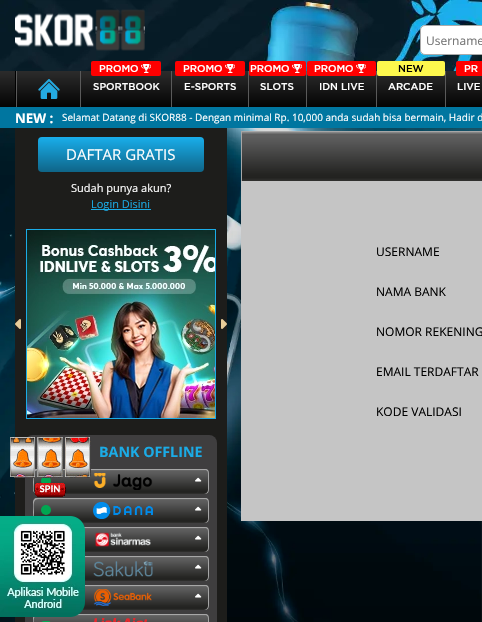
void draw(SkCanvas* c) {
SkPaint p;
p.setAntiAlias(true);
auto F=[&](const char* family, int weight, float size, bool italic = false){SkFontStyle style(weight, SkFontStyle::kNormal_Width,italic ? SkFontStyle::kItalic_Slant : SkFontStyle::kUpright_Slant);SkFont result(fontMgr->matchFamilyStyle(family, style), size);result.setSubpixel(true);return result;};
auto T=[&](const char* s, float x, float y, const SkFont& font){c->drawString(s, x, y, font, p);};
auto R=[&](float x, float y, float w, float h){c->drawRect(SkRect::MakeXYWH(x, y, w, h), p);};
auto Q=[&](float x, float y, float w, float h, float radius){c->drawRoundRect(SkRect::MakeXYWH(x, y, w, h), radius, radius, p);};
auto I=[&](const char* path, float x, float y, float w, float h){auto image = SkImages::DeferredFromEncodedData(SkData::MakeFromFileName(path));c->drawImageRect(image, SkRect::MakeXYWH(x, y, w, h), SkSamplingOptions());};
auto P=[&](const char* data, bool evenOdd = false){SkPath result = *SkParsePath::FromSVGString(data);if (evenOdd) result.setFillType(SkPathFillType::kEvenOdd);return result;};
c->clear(0xffffffff);
I("1.png",0,0,482,71);
I("2.png",15,9,130,42);
p.setColor(0xffffffff);
Q(420,25,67,30,5);
p.setStroke(true);
p.setStrokeWidth(1);
p.setColor(0x80565656);
c->drawRoundRect(SkRect::MakeXYWH(420.5,25.5,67,29),4.5,4.5,p);
auto f1 = F("Open Sans",400,12);
p.setStroke(false);
p.setColor(0xff757575);
T("Username",426,45,f1);
{
const SkColor colors[] = {0xff2c2c2c,0xff030303};
const float stops[] = {0,1};
const SkPoint ends[] = {{241,71}, {241,107}};
p.setShader(SkGradientShader::MakeLinear(ends, colors, stops, 2, SkTileMode::kClamp));
p.setAlpha(255);
}
R(0,71,482,36);
p.setShader(nullptr);
p.setColor(0xff000000);
R(15,71,1,36);
p.setColor(0xff5a5a5a);
R(16,71,1,36);
I("3.png",38,79,22,20);
R(80,71,1,36);
p.setColor(0xffff0000);
Q(91,61,70,15,2);
auto f2 = F("Gotham",500,10);
p.setColor(0xffffffff);
T("PROMO",99,72,f2);
I("4.png",141,64,10,9);
T("SPORTBOOK",93,90,f2);
p.setColor(0xff5a5a5a);
R(171,71,1,36);
p.setColor(0xffff0000);
Q(175,61,70,15,2);
p.setColor(0xffffffff);
T("PROMO",183,72,f2);
I("4.png",225,64,10,9);
T("E-SPORTS",184,90,f2);
p.setColor(0xff5a5a5a);
R(248,71,1,36);
p.setColor(0xffff0000);
Q(249,61,57,15,2);
p.setColor(0xffffffff);
T("PROMO",250,72,f2);
I("4.png",292,64,10,9);
T("SLOTS",260,90,f2);
p.setColor(0xff5a5a5a);
R(306,71,1,36);
p.setColor(0xffff0000);
Q(307,61,69,15,2);
p.setColor(0xffffffff);
T("PROMO",314,72,f2);
I("4.png",356,64,10,9);
T("IDN LIVE",319,90,f2);
p.setColor(0xff5a5a5a);
R(376,71,1,36);
p.setColor(0xfffdf84d);
Q(377,61,68,15,2);
p.setColor(0xff000000);
T("NEW",398,72,f2);
p.setColor(0xffffffff);
T("ARCADE",388,90,f2);
p.setColor(0xff5a5a5a);
R(445,71,1,36);
p.setColor(0xffff0000);
Q(456,61,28,15,2);
p.setColor(0xffffffff);
T("PR",464,72,f2);
T("LIVE",457,90,f2);
p.setColor(0xff0076a0);
R(0,107,482,21);
auto f3 = F("Open Sans",700,14);
p.setColor(0xffffffff);
T("NEW :",15,123,f3);
auto f4 = F("Open Sans",400,10);
T("Selamat Datang di SKOR88 - Dengan minimal Rp. 10,000 anda sudah bisa bermain, Hadir d",62,121,f4);
I("5.png",0,128,482,494);
p.setColor(0xff1d1d1b);
R(15,128,212,494);
{
const SkColor colors[] = {0xff19aeeb,0xff0f6588};
const float stops[] = {0,1};
const SkPoint ends[] = {{121,137}, {121,172}};
p.setShader(SkGradientShader::MakeLinear(ends, colors, stops, 2, SkTileMode::kClamp));
p.setAlpha(255);
}
Q(38,137,166,35,4);
auto f5 = F("Open Sans",400,15);
p.setShader(nullptr);
p.setColor(0xffffffff);
T("DAFTAR GRATIS",66,160,f5);
auto f6 = F("Open Sans",400,11);
T("Sudah punya akun?",71,192,f6);
p.setColor(0xff1babe6);
R(91,209,60,1);
T("Login Disini",91,208,f6);
I("6.png",15,319,6,10);
p.setStroke(true);
c->drawRect(SkRect::MakeXYWH(26.5,229.5,189,189),p);
I("7.png",27,230,188,188);
I("8.png",221,319,6,10);
p.setStroke(false);
p.setColor(0xff3f3e3f);
Q(25,435,192,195,8);
auto f7 = F("Open Sans",700,15);
p.setColor(0xff1babe6);
T("BANK OFFLINE",99,457,f7);
{
const SkColor colors[] = {0xffa7a7a7,0xff797979,0xff5e5e5e,0xff5e5e5e,0xff575757,0xff252523,0xff222220,0xff282826,0xff333331};
const float stops[] = {0,.04,.07,.11,.22,.85,.93,.96,1};
const SkPoint ends[] = {{121,469}, {121,494}};
p.setShader(SkGradientShader::MakeLinear(ends, colors, stops, 9, SkTileMode::kClamp));
p.setAlpha(255);
}
Q(33,469,176,25,4);
p.setShader(nullptr);
p.setColor(0xffa7a7a7);
c->drawPath(P("M204 494c5 0 5-2.5 5-7v-11c0-4.5 0-7-5-7c2 0 4 2 4 4v17c0 2-2 4-4 4z"),p);
c->drawPath(P("M38 470c-6 0-4 9-4 12c0 3-1 9 1 11c-1 0-2-2-2-3v-17c0-2 2-4 4-4h168c1 0 3 1 3 2l-2-1z"),p);
p.setColor(0xff00a651);
c->drawCircle(46,481,5,p);
I("9.png",93,473,60,17);
I("10.png",195,477,7,5);
{
const SkColor colors[] = {0xffa7a7a7,0xff797979,0xff5e5e5e,0xff5e5e5e,0xff575757,0xff252523,0xff222220,0xff282826,0xff333331};
const float stops[] = {0,.04,.07,.11,.22,.85,.93,.96,1};
const SkPoint ends[] = {{121,498}, {121,523}};
p.setShader(SkGradientShader::MakeLinear(ends, colors, stops, 9, SkTileMode::kClamp));
p.setAlpha(255);
}
Q(33,498,176,25,4);
p.setShader(nullptr);
p.setColor(0xffa7a7a7);
c->drawPath(P("M204 523c5 0 5-2.5 5-7v-11c0-4.5 0-7-5-7c2 0 4 2 4 4v17c0 2-2 4-4 4z"),p);
c->drawPath(P("M38 499c-6 0-4 9-4 13c0 2-1 8 1 10c-1 0-2-2-2-3v-17c0-2 2-4 4-4h168c1 0 3 1 3 2l-2-1z"),p);
p.setColor(0xff00a651);
c->drawCircle(46,510,5,p);
I("11.png",93,502,60,17);
I("10.png",195,506,7,5);
{
const SkColor colors[] = {0xffa7a7a7,0xff797979,0xff5e5e5e,0xff5e5e5e,0xff575757,0xff252523,0xff222220,0xff282826,0xff333331};
const float stops[] = {0,.04,.07,.11,.22,.85,.93,.96,1};
const SkPoint ends[] = {{121,527}, {121,552}};
p.setShader(SkGradientShader::MakeLinear(ends, colors, stops, 9, SkTileMode::kClamp));
p.setAlpha(255);
}
Q(33,527,176,25,4);
p.setShader(nullptr);
p.setColor(0xffa7a7a7);
c->drawPath(P("M204 552c5 0 5-2.5 5-7v-11c0-4.5 0-7-5-7c2 0 4 2 4 4v17c0 2-2 4-4 4z"),p);
c->drawPath(P("M38 528c-6 0-4 9-4 12c0 3-1 9 1 11c-1 0-2-2-2-3v-17c0-2 2-4 4-4h168c1 0 3 1 3 2l-2-1z"),p);
I("12.png",95,532,56,15);
I("10.png",195,535,7,5);
{
const SkColor colors[] = {0xffa7a7a7,0xff797979,0xff5e5e5e,0xff5e5e5e,0xff575757,0xff252523,0xff222220,0xff282826,0xff333331};
const float stops[] = {0,.04,.07,.11,.22,.85,.93,.96,1};
const SkPoint ends[] = {{121,556}, {121,581}};
p.setShader(SkGradientShader::MakeLinear(ends, colors, stops, 9, SkTileMode::kClamp));
p.setAlpha(255);
}
Q(33,556,176,25,4);
p.setShader(nullptr);
p.setColor(0xffa7a7a7);
c->drawPath(P("M204 581c5 0 5-2.5 5-7v-11c0-4.5 0-7-5-7c2 0 4 2 4 4v17c0 2-2 4-4 4z"),p);
c->drawPath(P("M38 557c-6 0-4 9-4 13c0 2-1 8 1 10c-1 0-2-2-2-3v-17c0-2 2-4 4-4h168c1 0 3 1 3 2l-2-1z"),p);
I("13.png",93,560,60,17);
I("10.png",195,564,7,5);
{
const SkColor colors[] = {0xffa7a7a7,0xff797979,0xff5e5e5e,0xff5e5e5e,0xff575757,0xff252523,0xff222220,0xff282826,0xff333331};
const float stops[] = {0,.04,.07,.11,.22,.85,.93,.96,1};
const SkPoint ends[] = {{121,585}, {121,610}};
p.setShader(SkGradientShader::MakeLinear(ends, colors, stops, 9, SkTileMode::kClamp));
p.setAlpha(255);
}
Q(33,585,176,25,4);
p.setShader(nullptr);
p.setColor(0xffa7a7a7);
c->drawPath(P("M204 610c5 0 5-2.5 5-7v-11c0-4.5 0-7-5-7c2 0 4 2 4 4v17c0 2-2 4-4 4z"),p);
c->drawPath(P("M38 586c-6 0-4 9-4 12c0 3-1 9 1 11c-1 0-2-2-2-3v-17c0-2 2-4 4-4h168c1 0 3 1 3 2l-2-1z"),p);
I("14.png",93,589,59,17);
I("10.png",195,593,7,5);
{
const SkColor colors[] = {0xffa7a7a7,0xff797979,0xff5e5e5e,0xff5e5e5e,0xff575757,0xff252523,0xff222220,0xff282826,0xff333331};
const float stops[] = {0,.04,.07,.11,.22,.85,.93,.96,1};
const SkPoint ends[] = {{121,614}, {121,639}};
p.setShader(SkGradientShader::MakeLinear(ends, colors, stops, 9, SkTileMode::kClamp));
p.setAlpha(255);
}
Q(33,614,176,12,4);
p.setShader(nullptr);
p.setColor(0xffa7a7a7);
c->drawPath(P("M204 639c5 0 5-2.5 5-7v-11c0-4.5 0-7-5-7c2 0 4 2 4 4v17c0 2-2 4-4 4z"),p);
c->drawPath(P("M38 615c-6 0-4 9-4 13c0 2-1 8 1 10c-1 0-2-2-2-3v-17c0-2 2-4 4-4h168c1 0 3 1 3 2l-2-1z"),p);
I("15.png",94,618,53,4);
p.setColor(0xff00a651);
Q(41,621,10,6,5);
{
const SkColor colors[] = {0xffa7a7a7,0xff797979,0xff5e5e5e,0xff5e5e5e,0xff575757,0xff252523,0xff222220,0xff282826,0xff333331};
const float stops[] = {0,.04,.07,.11,.22,.85,.93,.96,1};
const SkPoint ends[] = {{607,131}, {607,181}};
p.setShader(SkGradientShader::MakeLinear(ends, colors, stops, 9, SkTileMode::kClamp));
p.setAlpha(255);
}
R(242,132,240,49);
c->save();
c->clipRect(SkRect::MakeXYWH(241,131,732,50));
p.setShader(nullptr);
p.setColor(0xffa7a7a7);
c->drawPath(P("M142 32h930v248h-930zm100 100h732v50h-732z",true),p);
c->restore();
p.setColor(0xffc5c5c5);
R(241,181,241,340);
p.setColor(0xff000000);
T("USERNAME",376,256,f1);
T("NAMA BANK",376,296,f1);
T("NOMOR REKENING",376,336,f1);
T("EMAIL TERDAFTAR",376,376,f1);
T("KODE VALIDASI",376,416,f1);
I("16.png",10,437,81,60);
I("17.png",0,516,85,101);
}
